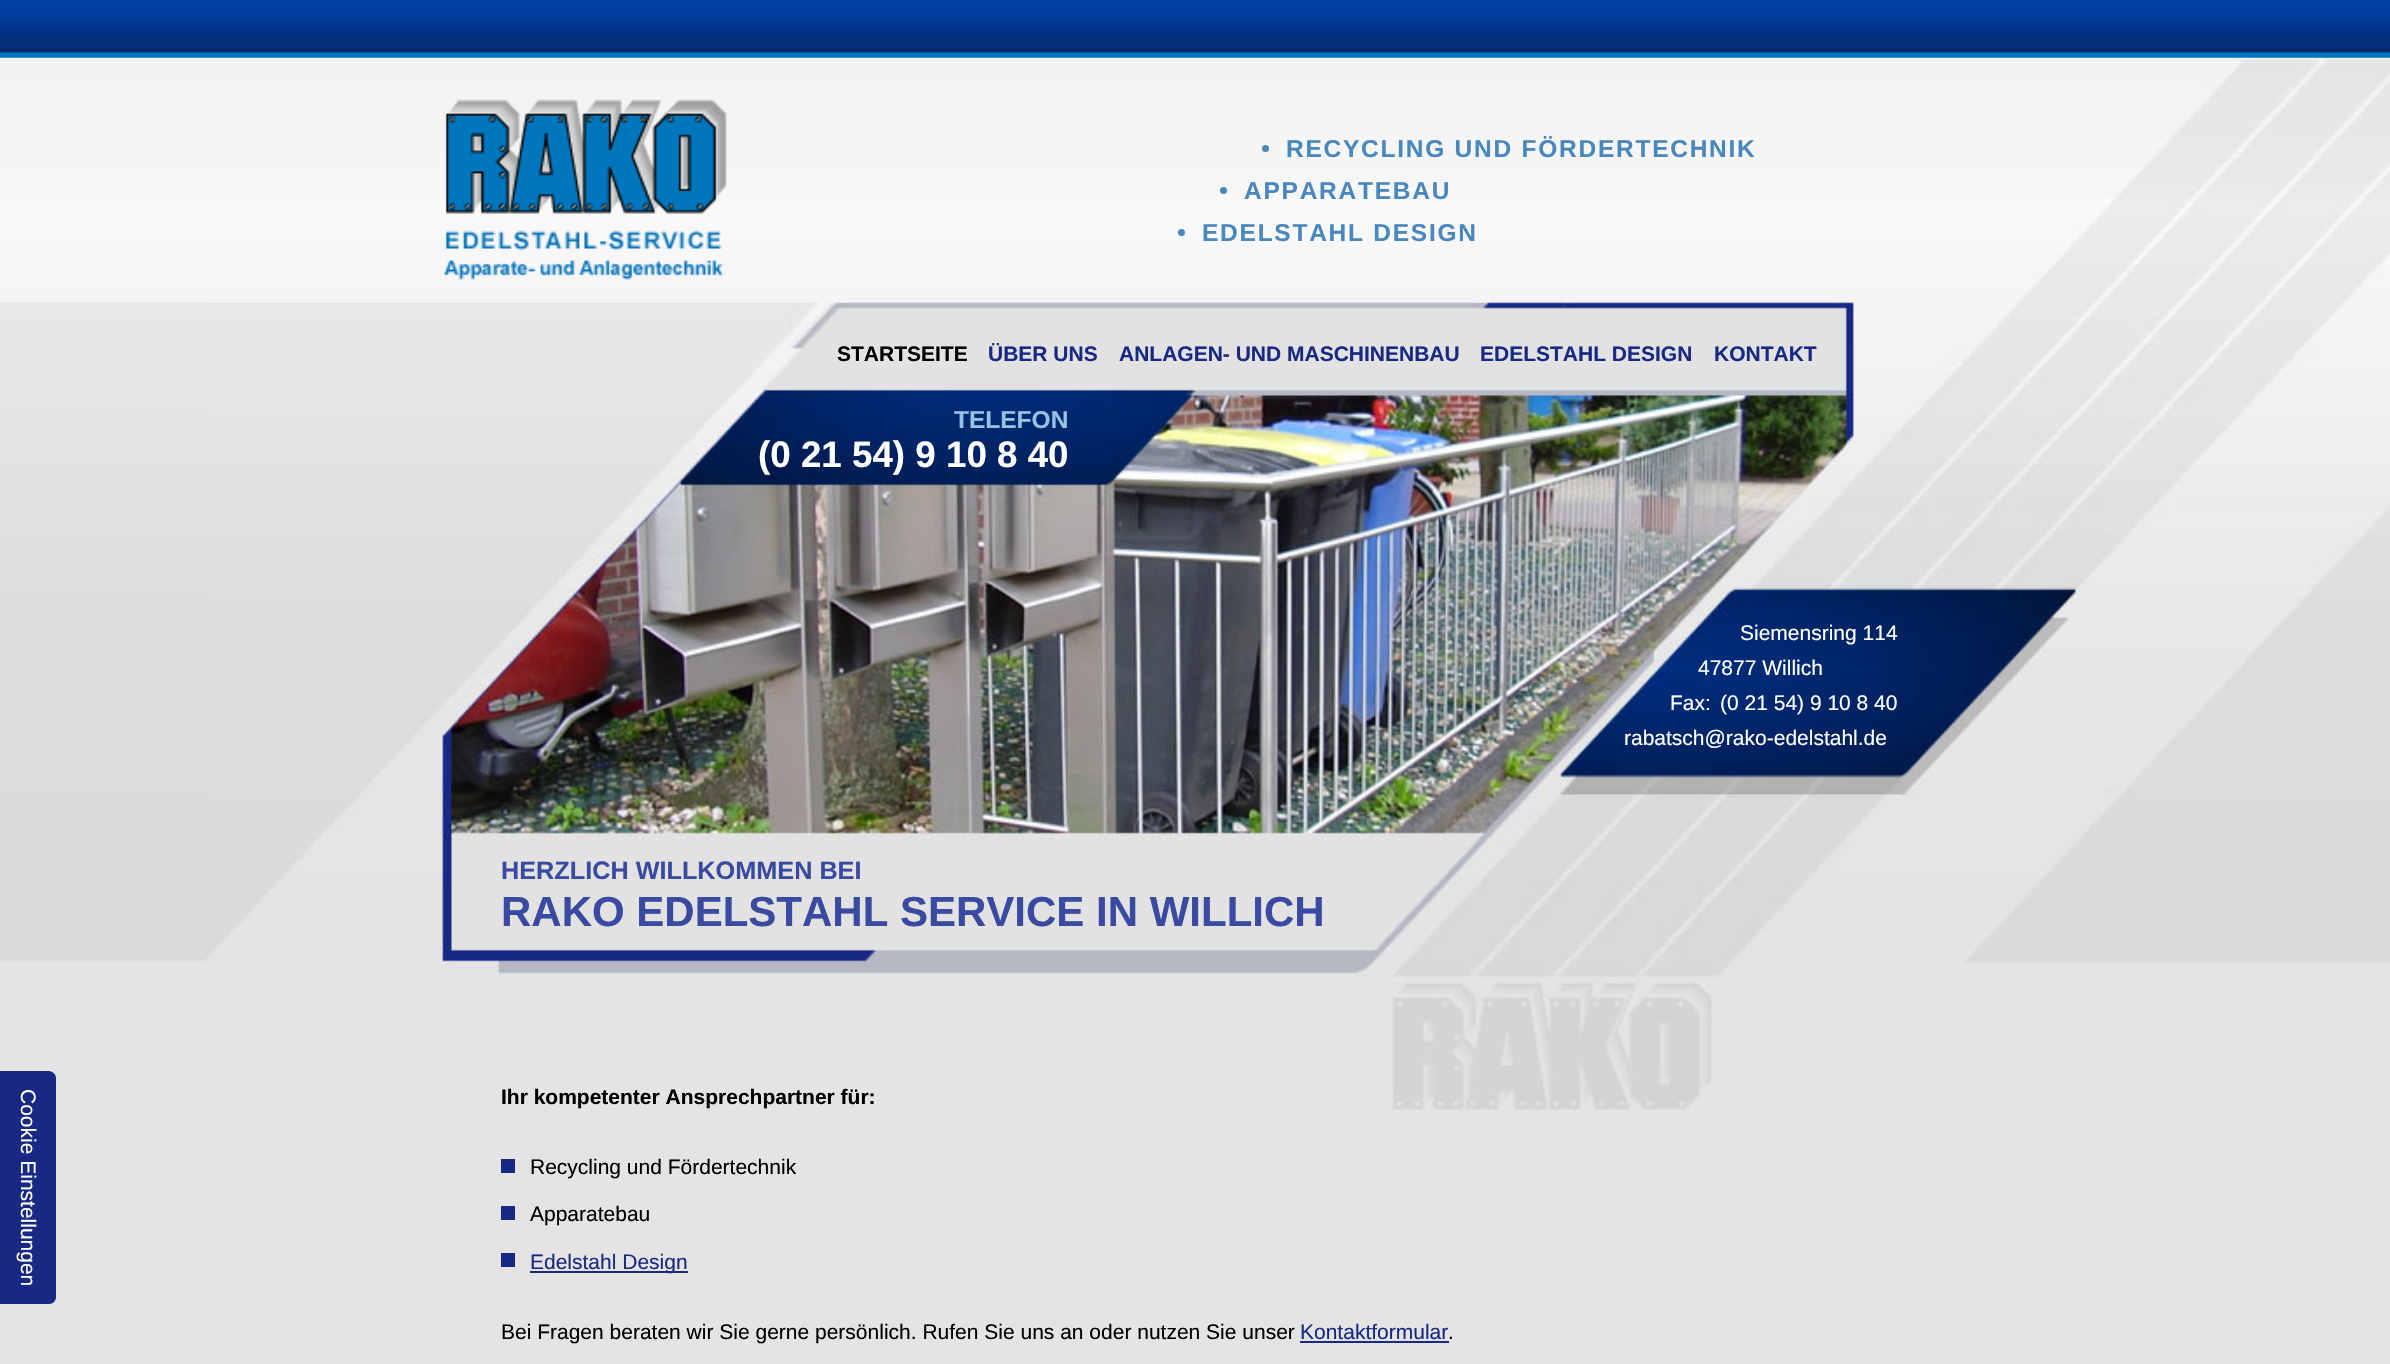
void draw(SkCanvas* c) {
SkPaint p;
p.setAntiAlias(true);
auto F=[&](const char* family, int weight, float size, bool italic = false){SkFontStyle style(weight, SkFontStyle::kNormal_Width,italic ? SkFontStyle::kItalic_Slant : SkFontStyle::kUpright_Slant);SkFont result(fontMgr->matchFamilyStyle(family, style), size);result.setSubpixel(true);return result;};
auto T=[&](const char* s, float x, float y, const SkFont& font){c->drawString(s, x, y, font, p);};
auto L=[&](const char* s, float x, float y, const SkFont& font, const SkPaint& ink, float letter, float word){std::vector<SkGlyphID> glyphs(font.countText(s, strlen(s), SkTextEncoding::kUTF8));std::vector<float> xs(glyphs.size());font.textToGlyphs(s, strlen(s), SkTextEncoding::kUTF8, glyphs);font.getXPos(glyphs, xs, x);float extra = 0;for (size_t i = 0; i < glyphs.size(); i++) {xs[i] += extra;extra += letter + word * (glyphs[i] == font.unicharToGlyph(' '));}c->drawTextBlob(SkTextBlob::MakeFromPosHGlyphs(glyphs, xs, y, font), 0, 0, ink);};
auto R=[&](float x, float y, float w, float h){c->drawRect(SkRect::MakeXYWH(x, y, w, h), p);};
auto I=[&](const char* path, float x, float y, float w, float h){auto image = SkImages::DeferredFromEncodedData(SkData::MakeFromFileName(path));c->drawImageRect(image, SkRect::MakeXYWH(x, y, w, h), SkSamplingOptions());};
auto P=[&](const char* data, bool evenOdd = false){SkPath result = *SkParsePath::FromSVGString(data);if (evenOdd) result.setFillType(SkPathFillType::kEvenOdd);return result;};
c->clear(0xffe4e4e4);
I("2.png",0,58,2390,903);
I("1.png",206,59,2184,1051);
I("3.png",0,0,2390,58);
I("4.png",444,99,283,181);
p.setColor(0xff4987bc);
c->drawCircle(1265.5,148.5,3.5,p);
auto f1 = F("Liberation Sans",700,24.5);
L("RECYCLING UND FÖRDERTECHNIK",1286,157,f1,p,1.75,0);
c->drawCircle(1223.5,190.5,3.5,p);
L("APPARATEBAU",1244,199,f1,p,1.75,0);
c->drawCircle(1181.5,232.5,3.5,p);
L("EDELSTAHL DESIGN",1202,241,f1,p,1.75,0);
auto f2 = F("Liberation Sans",700,25.25);
p.setColor(0xff394aa0);
T("HERZLICH WILLKOMMEN BEI",501,879,f2);
auto f3 = F("Liberation Sans",700,42);
T("RAKO EDELSTAHL SERVICE IN WILLICH",501,926,f3);
auto f4 = F("Liberation Sans",700,21);
p.setColor(0xff000000);
T("Ihr kompetenter Ansprechpartner für:",501,1104,f4);
p.setColor(0xff172983);
R(501,1159,14,14);
auto f5 = F("Liberation Sans",400,21);
p.setColor(0xff000000);
T("Recycling und Fördertechnik",530,1174,f5);
p.setColor(0xff172983);
R(501,1206,14,14);
p.setColor(0xff000000);
T("Apparatebau",530,1221,f5);
p.setColor(0xff172983);
R(501,1253,14,14);
R(530,1271,158,2);
T("Edelstahl Design",530,1269,f5);
p.setColor(0xff000000);
T("Bei Fragen beraten wir Sie gerne persönlich. Rufen Sie uns an oder nutzen Sie unser",501,1339,f5);
p.setColor(0xff172983);
T("Kontaktformular",1300,1339,f5);
R(1300,1341,149,2);
p.setColor(0xff000000);
T(".",1448,1339,f5);
T("STARTSEITE",837,361,f4);
p.setColor(0xff172983);
T("ÜBER UNS",988,361,f4);
T("ANLAGEN- UND MASCHINENBAU",1119,361,f4);
T("EDELSTAHL DESIGN",1480,361,f4);
T("KONTAKT",1714,361,f4);
p.setColor(0xff96c3e3);
T("TELEFON",954,428,f1);
auto f6 = F("Liberation Sans",700,36.75);
p.setColor(0xffffffff);
T("(0 21 54) 9 10 8 40",758,467,f6);
T("Fax:",1670,710,f5);
T("(0 21 54) 9 10 8 40",1720,710,f5);
T("rabatsch@rako-edelstahl.de",1624,745,f5);
T("Siemensring 114",1740,640,f5);
T("47877 Willich",1698,675,f5);
p.setColor(0xff172983);
c->drawPath(P("M56 1078v219c0 4-3 7-7 7h-49v-233h49c4 0 7 4 7 7z"),p);
p.setColor(0xffffffff);
c->save();
c->rotate(90,21,1089);
T("Cookie Einstellungen",21,1089,f5);
c->restore();
}
